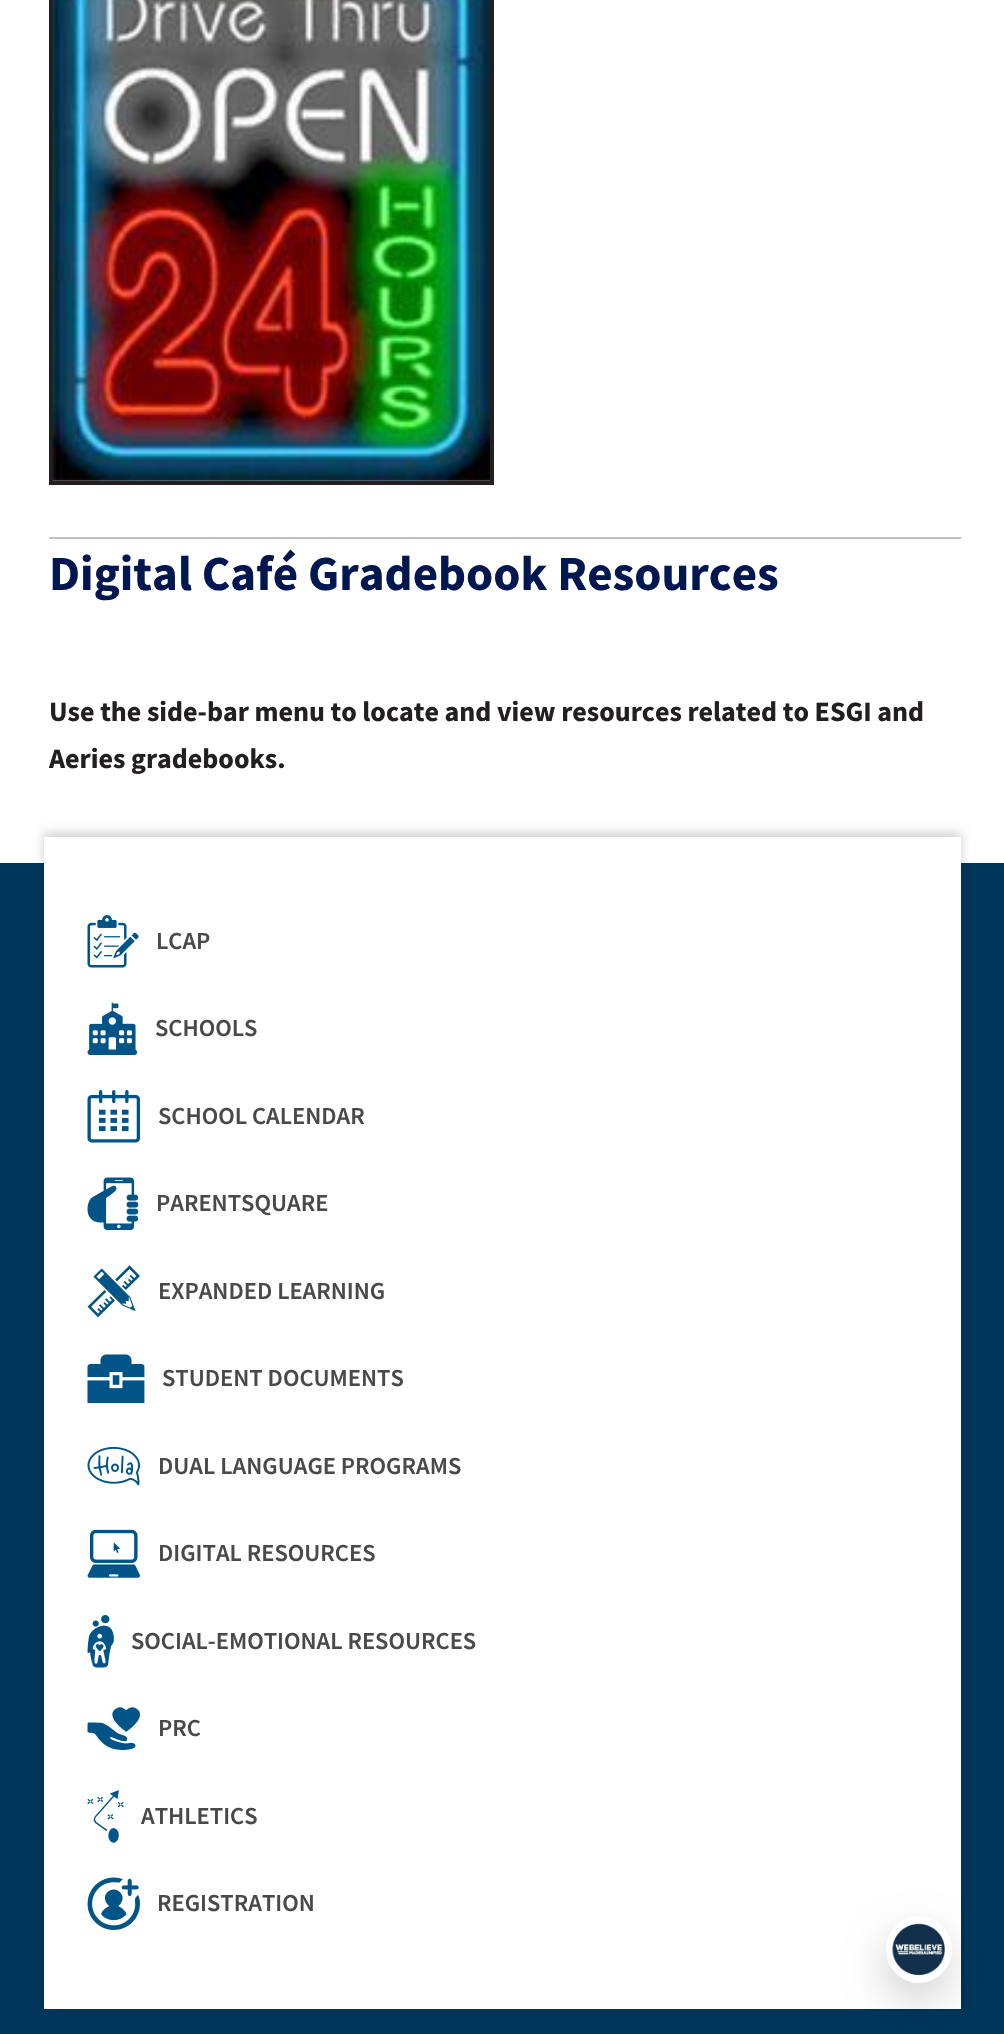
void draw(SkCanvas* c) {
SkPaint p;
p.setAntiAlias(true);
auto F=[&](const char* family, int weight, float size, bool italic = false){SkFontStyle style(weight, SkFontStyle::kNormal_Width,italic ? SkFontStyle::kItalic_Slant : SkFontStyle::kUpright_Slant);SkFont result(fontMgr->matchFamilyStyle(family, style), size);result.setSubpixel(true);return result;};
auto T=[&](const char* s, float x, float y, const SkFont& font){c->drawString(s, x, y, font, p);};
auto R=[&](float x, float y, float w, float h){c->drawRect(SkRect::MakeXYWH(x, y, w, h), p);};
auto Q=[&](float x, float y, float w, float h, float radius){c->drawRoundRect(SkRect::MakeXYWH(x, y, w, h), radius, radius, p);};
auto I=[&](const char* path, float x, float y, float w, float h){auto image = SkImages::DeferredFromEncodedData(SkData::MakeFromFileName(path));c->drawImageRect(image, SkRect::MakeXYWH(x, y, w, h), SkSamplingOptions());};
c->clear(0xffffffff);
p.setStroke(true);
p.setStrokeWidth(4);
p.setColor(0xff231f20);
c->drawRect(SkRect::MakeXYWH(51,-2,441,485),p);
I("1.png",52,0,438,481);
p.setStroke(false);
p.setColor(0xffc0c0c0);
R(49,537,912,2);
auto f1 = F("Source Sans Pro",700,49);
p.setColor(0xff021650);
T("Digital Café Gradebook Resources",49,590,f1);
auto f2 = F("Source Sans Pro",700,28);
p.setColor(0xff231f20);
T("Use the side-bar menu to locate and view resources related to ESGI and",49,721,f2);
T("Aeries gradebooks.",49,768,f2);
p.setColor(0xff00365b);
R(0,863,1004,1171);
p.setColor(0x30000000);
p.setMaskFilter(SkMaskFilter::MakeBlur(kNormal_SkBlurStyle, 5));
c->drawRect(SkRect::MakeXYWH(44,833,917,1173),p);
p.setMaskFilter(nullptr);
p.setColor(0xffffffff);
R(44,837,917,1172);
I("2.png",87,915,52,53);
auto f3 = F("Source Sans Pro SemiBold",600,24.5);
p.setColor(0xff49494a);
T("LCAP",156,949,f3);
I("3.png",87,1002,51,53);
T("SCHOOLS",155,1036,f3);
I("4.png",87,1090,53,53);
T("SCHOOL CALENDAR",158,1124,f3);
I("5.png",87,1177,52,53);
T("PARENTSQUARE",156,1211,f3);
I("6.png",87,1265,53,53);
T("EXPANDED LEARNING",158,1299,f3);
I("7.png",87,1354,58,50);
T("STUDENT DOCUMENTS",162,1386,f3);
I("8.png",87,1446,53,40);
T("DUAL LANGUAGE PROGRAMS",158,1474,f3);
I("9.png",87,1529,53,49);
T("DIGITAL RESOURCES",158,1561,f3);
I("10.png",87,1615,27,53);
T("SOCIAL-EMOTIONAL RESOURCES",131,1649,f3);
I("11.png",87,1707,53,44);
T("PRC",158,1736,f3);
I("12.png",87,1790,37,53);
T("ATHLETICS",141,1824,f3);
I("13.png",87,1877,53,53);
T("REGISTRATION",157,1911,f3);
p.setColor(0x52000000);
p.setMaskFilter(SkMaskFilter::MakeBlur(kNormal_SkBlurStyle, 23.5));
c->drawRoundRect(SkRect::MakeXYWH(893,1943,49,49),24.5,24.5,p);
p.setMaskFilter(nullptr);
p.setColor(0xffffffff);
Q(886,1916,66,67,33);
I("14.png",892,1923,53,53);
}
